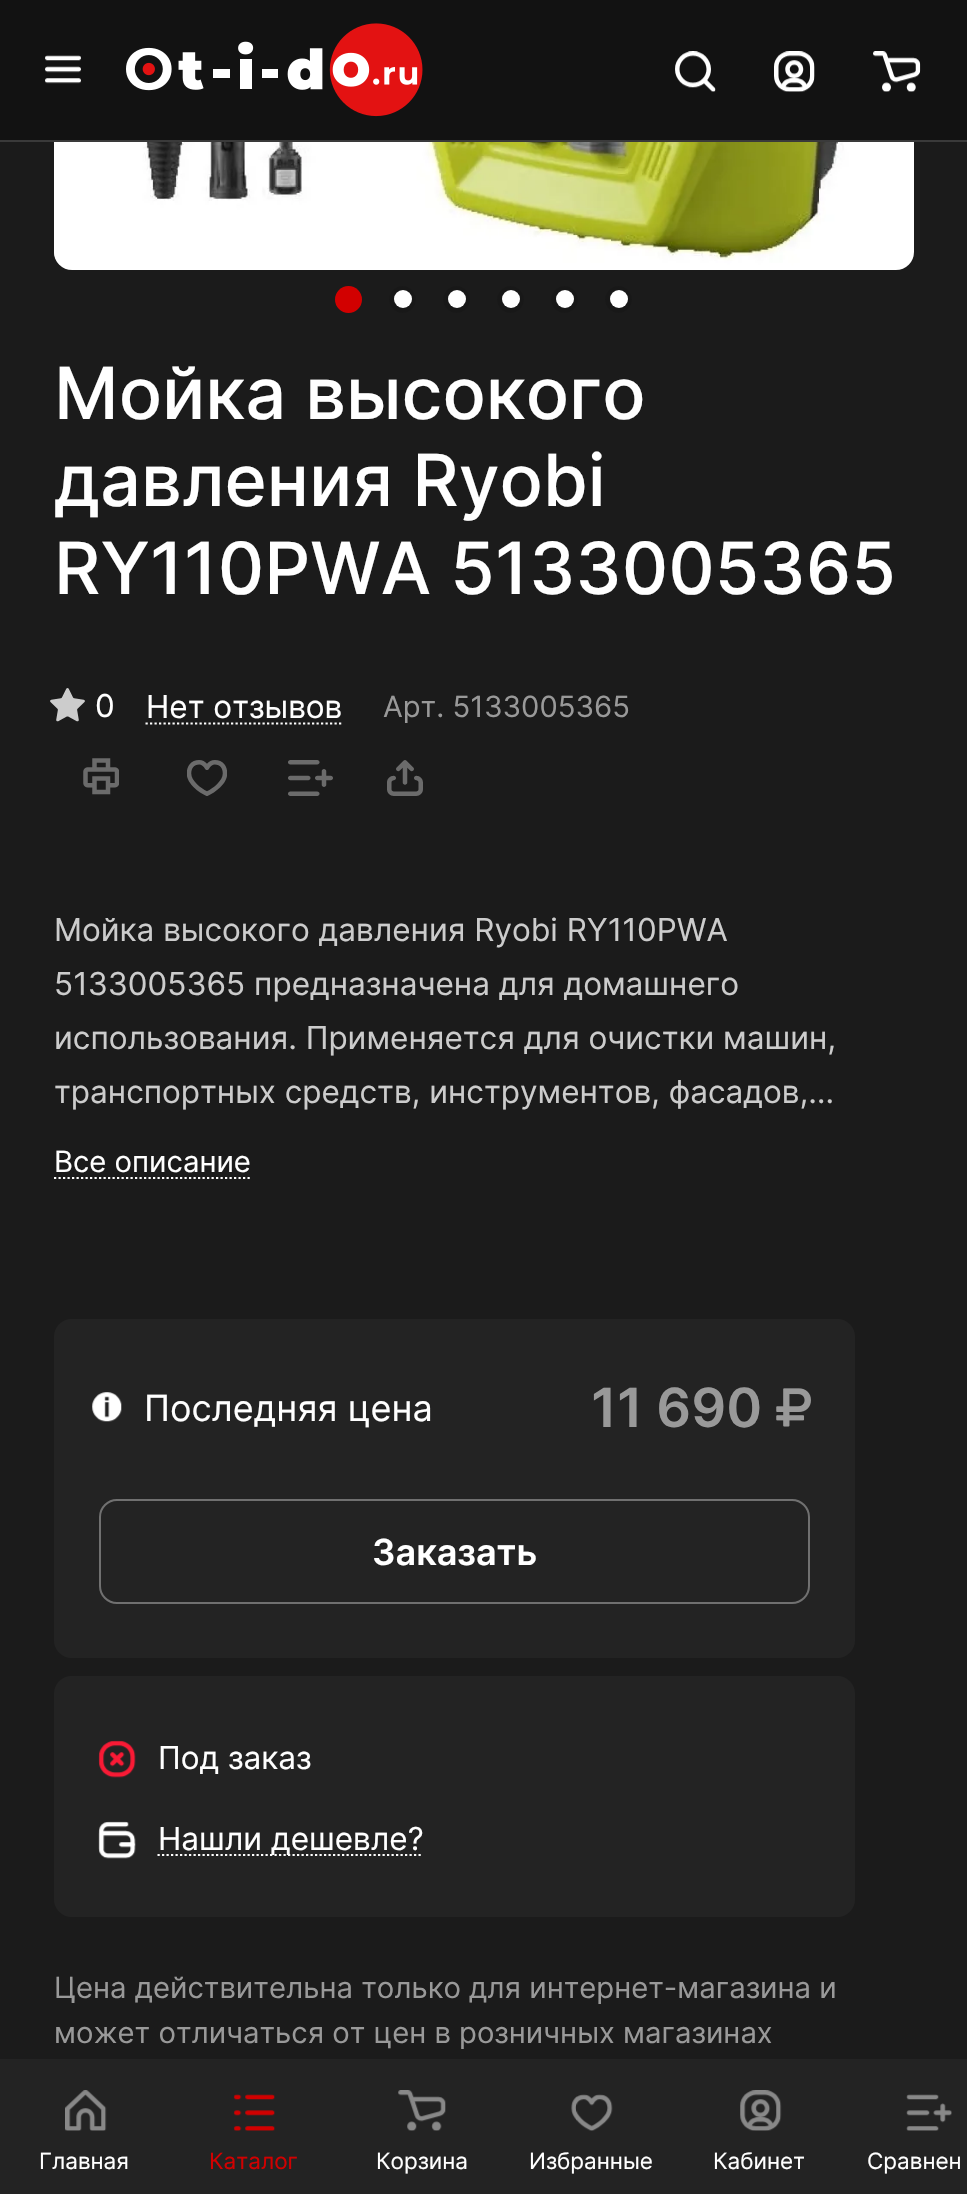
void draw(SkCanvas* c) {
SkPaint p;
p.setAntiAlias(true);
auto F=[&](const char* family, int weight, float size, bool italic = false){SkFontStyle style(weight, SkFontStyle::kNormal_Width,italic ? SkFontStyle::kItalic_Slant : SkFontStyle::kUpright_Slant);SkFont result(fontMgr->matchFamilyStyle(family, style), size);result.setSubpixel(true);return result;};
auto T=[&](const char* s, float x, float y, const SkFont& font){c->drawString(s, x, y, font, p);};
auto R=[&](float x, float y, float w, float h){c->drawRect(SkRect::MakeXYWH(x, y, w, h), p);};
auto Q=[&](float x, float y, float w, float h, float radius){c->drawRoundRect(SkRect::MakeXYWH(x, y, w, h), radius, radius, p);};
auto I=[&](const char* path, float x, float y, float w, float h){auto image = SkImages::DeferredFromEncodedData(SkData::MakeFromFileName(path));c->drawImageRect(image, SkRect::MakeXYWH(x, y, w, h), SkSamplingOptions());};
auto P=[&](const char* data, bool evenOdd = false){SkPath result = *SkParsePath::FromSVGString(data);if (evenOdd) result.setFillType(SkPathFillType::kEvenOdd);return result;};
c->clear(0xff1b1b1b);
p.setColor(0xffffffff);
Q(54,-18,860,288,18);
p.setColor(0xff3a3a3a);
c->drawPath(P("M0 140v2h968v-140v138z"),p);
p.setColor(0xff121212);
R(0,0,967,140);
I("1.png",45,55,36,29);
I("2.png",126,23,297,94);
I("3.png",675,51,41,41);
I("4.png",774,51,41,41);
I("5.png",873,51,48,41);
I("6.png",54,142,813,127);
p.setColor(0xffd20000);
c->drawCircle(348.5,299.5,13.5,p);
p.setColor(0xff181818);
c->drawCircle(402.5,299.5,13.5,p);
p.setColor(0xffffffff);
c->drawCircle(403,299,9,p);
p.setColor(0xff181818);
c->drawCircle(456.5,299.5,13.5,p);
p.setColor(0xffffffff);
c->drawCircle(457,299,9,p);
p.setColor(0xff181818);
c->drawCircle(510.5,299.5,13.5,p);
p.setColor(0xffffffff);
c->drawCircle(511,299,9,p);
p.setColor(0xff181818);
c->drawCircle(564.5,299.5,13.5,p);
p.setColor(0xffffffff);
c->drawCircle(565,299,9,p);
p.setColor(0xff181818);
c->drawCircle(618.5,299.5,13.5,p);
p.setColor(0xffffffff);
c->drawCircle(619,299,9,p);
auto f1 = F("Inter",500,72);
T("Мойка высокого",54,419,f1);
T("давления Ryobi",54,506,f1);
T("RY110PWA 5133005365",54,594,f1);
I("7.png",50,688,35,34);
auto f2 = F("Inter",400,31.5);
T("0",95,717,f2);
T("Нет отзывов",146,718,f2);
p.setStroke(true);
p.setStrokeWidth(2.2);
p.setPathEffect(SkDashPathEffect::Make({{2.25f,2.25f}}, 0));
c->drawPath(P("M145.5 723.5h196.5"),p);
p.setPathEffect(nullptr);
auto f3 = F("Inter",400,29.25);
p.setStroke(false);
p.setColor(0xff999999);
T("Арт. 5133005365",383,717,f3);
I("8.png",83,758,36,37);
I("9.png",187,760,40,36);
I("10.png",288,760,45,36);
I("11.png",387,760,36,36);
p.setColor(0xffcccccc);
T("Мойка высокого давления Ryobi RY110PWA",54,941,f2);
T("5133005365 предназначена для домашнего",54,995,f2);
T("использования. Применяется для очистки машин,",54,1049,f2);
T("транспортных средств, инструментов, фасадов,…",54,1103,f2);
p.setColor(0xffffffff);
T("Все описание",54,1172,f3);
p.setStroke(true);
p.setPathEffect(SkDashPathEffect::Make({{2.25f,2.25f}}, 0));
c->drawPath(P("M54 1178h197"),p);
p.setPathEffect(nullptr);
p.setStroke(false);
p.setColor(0xff232323);
Q(54,1319,801,339,18);
I("12.png",92,1392,30,30);
auto f4 = F("Inter",400,36);
p.setColor(0xffffffff);
T("Последняя цена",144,1421,f4);
auto f5 = F("Inter",600,54);
p.setColor(0xff999999);
T("11 690",591,1427,f5);
I("13.png",776,1388,35,39);
p.setStroke(true);
p.setStrokeWidth(2);
p.setColor(0xff707070);
c->drawRoundRect(SkRect::MakeXYWH(100,1500,709,103),17,17,p);
auto f6 = F("Inter",600,36);
p.setStroke(false);
p.setColor(0xffffffff);
T("Заказать",372,1565,f6);
p.setColor(0xff232323);
Q(54,1676,801,241,18);
I("14.png",98,1740,38,38);
p.setColor(0xffffffff);
T("Под заказ",158,1769,f2);
I("15.png",98,1821,38,38);
p.setStroke(true);
p.setStrokeWidth(2.2);
p.setPathEffect(SkDashPathEffect::Make({{2.25f,2.25f}}, 0));
c->drawPath(P("M157.5 1855h265.5"),p);
p.setPathEffect(nullptr);
p.setStroke(false);
T("Нашли дешевле?",158,1850,f2);
p.setColor(0xff999999);
T("Цена действительна только для интернет-магазина и",54,1998,f3);
T("может отличаться от цен в розничных магазинах",54,2043,f3);
p.setColor(0xff232323);
R(0,2059,967,135);
I("16.png",65,2090,42,41);
auto f7 = F("Inter",400,22.5);
p.setColor(0xffffffff);
T("Главная",39,2169,f7);
I("17.png",233,2094,42,37);
p.setColor(0xffd20000);
T("Каталог",209,2169,f7);
I("18.png",398,2090,48,41);
p.setColor(0xffffffff);
T("Корзина",376,2169,f7);
I("19.png",571,2094,42,37);
T("Избранные",529,2169,f7);
I("20.png",740,2090,42,41);
T("Кабинет",713,2169,f7);
I("21.png",906,2094,46,37);
T("Сравнен",867,2169,f7);
}
